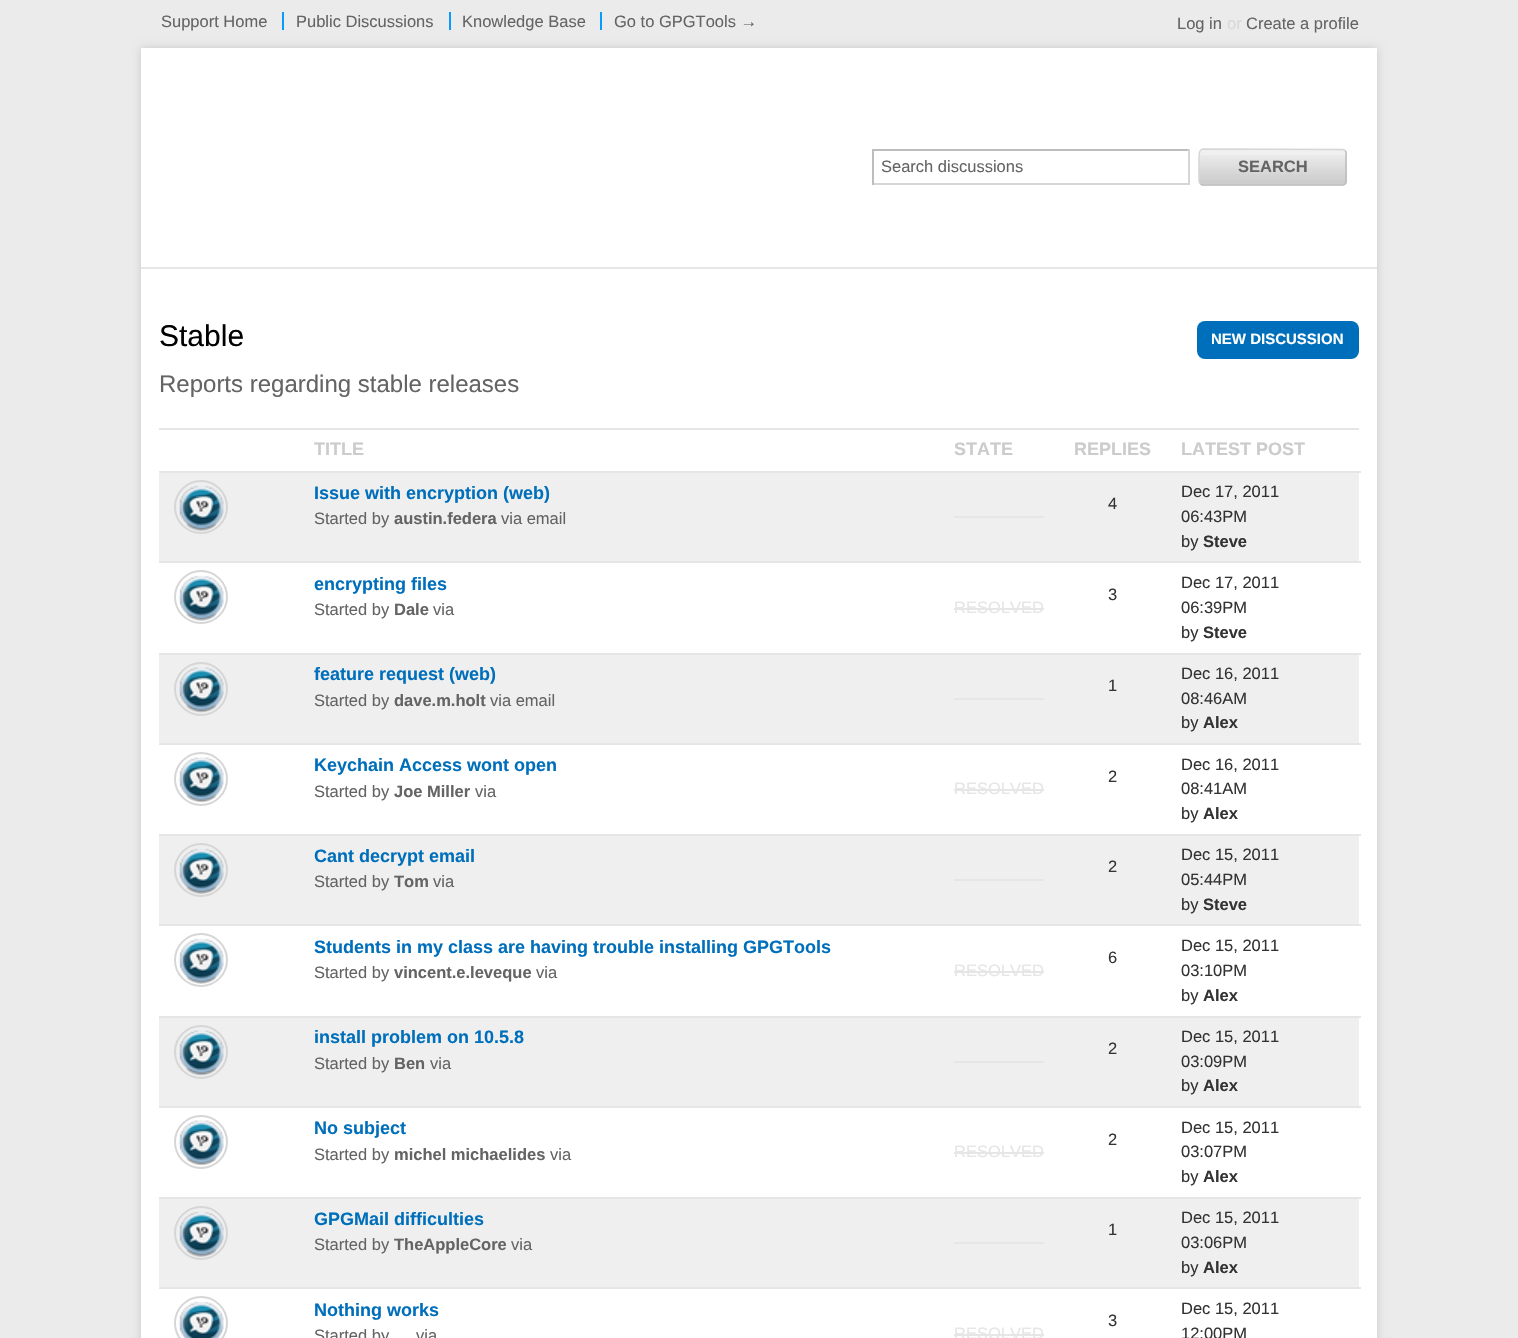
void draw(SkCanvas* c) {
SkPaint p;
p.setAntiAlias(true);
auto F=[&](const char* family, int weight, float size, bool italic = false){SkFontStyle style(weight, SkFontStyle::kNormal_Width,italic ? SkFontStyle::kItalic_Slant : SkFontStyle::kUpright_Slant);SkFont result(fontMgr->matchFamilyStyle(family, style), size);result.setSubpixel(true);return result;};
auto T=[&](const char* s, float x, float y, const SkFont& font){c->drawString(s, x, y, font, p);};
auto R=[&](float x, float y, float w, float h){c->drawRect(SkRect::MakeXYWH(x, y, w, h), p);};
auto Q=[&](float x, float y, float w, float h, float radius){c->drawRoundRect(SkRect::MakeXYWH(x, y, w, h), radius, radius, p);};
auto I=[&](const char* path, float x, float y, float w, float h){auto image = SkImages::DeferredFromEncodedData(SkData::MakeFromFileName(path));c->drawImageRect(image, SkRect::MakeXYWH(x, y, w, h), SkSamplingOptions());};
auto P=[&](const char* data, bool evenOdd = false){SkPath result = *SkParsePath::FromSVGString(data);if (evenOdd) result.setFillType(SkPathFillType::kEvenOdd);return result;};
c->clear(0xffebebeb);
auto f1 = F("Liberation Sans",400,16.5);
p.setColor(0xff646464);
T("Support Home",161,27,f1);
T("Public Discussions",296,27,f1);
p.setColor(0xff089bff);
R(282,12,2,18);
p.setColor(0xff646464);
T("Knowledge Base",462,27,f1);
p.setColor(0xff089bff);
R(449,12,2,18);
p.setColor(0xff646464);
T("Go to GPGTools →",614,27,f1);
p.setColor(0xff089bff);
R(600,12,2,18);
p.setColor(0xff646464);
T("Log in",1177,29,f1);
p.setColor(0xffd9d9d9);
T("or",1227,29,f1);
p.setColor(0xff646464);
T("Create a profile",1246,29,f1);
p.setColor(0x26000000);
p.setMaskFilter(SkMaskFilter::MakeBlur(kNormal_SkBlurStyle, 4));
c->drawRect(SkRect::MakeXYWH(141,48,1236,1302),p);
p.setMaskFilter(nullptr);
p.setColor(0xffffffff);
R(141,48,1236,1290);
p.setColor(0xffe6e6e6);
R(141,267,1236,2);
p.setColor(0xffbdbdbd);
R(872,149,318,2);
p.setColor(0xffd6d6d6);
R(1188,149,2,36);
R(872,183,318,2);
p.setColor(0xffbdbdbd);
R(872,149,2,36);
p.setColor(0xff646464);
T("Search discussions",881,172,f1);
p.setColor(0xfff0f0f0);
Q(1199,149,148,37,5);
I("1.png",1198,155,149,30);
p.setStroke(true);
p.setStrokeWidth(1.5);
p.setColor(0xffbdbdbd);
c->drawPath(P("M1345 150.5c2 1.5 1 5 1 7.5v19c0 2.5 1 8-3.5 8h-140l-2-1"),p);
p.setColor(0xffd6d6d6);
c->drawPath(P("M1200.5 184c-2-1.5-1.5-5-1.5-7v-19c0-3-.5-8.5 4-9l140 .5l2 1"),p);
auto f2 = F("Liberation Sans",700,16.5);
p.setStroke(false);
p.setColor(0xff646464);
T("SEARCH",1238,172,f2);
auto f3 = F("Liberation Sans",400,30);
p.setColor(0xff000000);
T("Stable",159,346,f3);
p.setColor(0xff006fbb);
Q(1197,321,162,38,8);
auto f4 = F("Liberation Sans",700,15);
p.setColor(0xffffffff);
T("NEW DISCUSSION",1211,344,f4);
auto f5 = F("Liberation Sans",400,24);
p.setColor(0xff646464);
T("Reports regarding stable releases",159,392,f5);
p.setColor(0xffe6e6e6);
R(159,428,1200,2);
auto f6 = F("Liberation Sans",700,18);
p.setColor(0xffcccccc);
T("TITLE",314,455,f6);
T("STATE",954,455,f6);
T("REPLIES",1074,455,f6);
p.setColor(0xffe6e6e6);
R(159,471,1202,2);
p.setColor(0xffcccccc);
T("LATEST POST",1181,455,f6);
p.setColor(0xffefefef);
R(159,473,1200,88);
p.setStroke(true);
p.setStrokeWidth(2);
p.setColor(0xffd6d6d6);
c->drawCircle(201,507,26,p);
I("2.png",179,485,45,46);
p.setStroke(false);
p.setColor(0xff006fbb);
T("Issue with encryption (web)",314,499,f6);
p.setColor(0xff646464);
T("Started by",314,524,f1);
T("austin.federa",394,524,f2);
T("via email",501,524,f1);
p.setColor(0xff333333);
T("4",1108,509,f1);
p.setColor(0xffe6e6e6);
R(159,561,1202,2);
p.setColor(0xff333333);
T("Dec 17, 2011",1181,497,f1);
T("06:43PM",1181,522,f1);
T("by",1181,547,f1);
T("Steve",1203,547,f2);
p.setColor(0xffe6e6e6);
R(954,516,90,2);
p.setStroke(true);
p.setColor(0xffd6d6d6);
c->drawCircle(201,597,26,p);
I("3.png",178,575,46,46);
p.setStroke(false);
p.setColor(0xff006fbb);
T("encrypting files",314,590,f6);
p.setColor(0xff646464);
T("Started by",314,615,f1);
T("Dale",394,615,f2);
T("via",433,615,f1);
p.setColor(0xff333333);
T("3",1108,600,f1);
p.setColor(0xffe6e6e6);
R(159,653,1202,2);
p.setColor(0xff333333);
T("Dec 17, 2011",1181,588,f1);
T("06:39PM",1181,613,f1);
T("by",1181,638,f1);
T("Steve",1203,638,f2);
p.setColor(0xffe6e6e6);
T("RESOLVED",954,613,f1);
R(954,608,90,2);
p.setColor(0xffefefef);
R(159,655,1200,88);
p.setStroke(true);
p.setColor(0xffd6d6d6);
c->drawCircle(201,689,26,p);
I("4.png",179,667,45,46);
p.setStroke(false);
p.setColor(0xff006fbb);
T("feature request (web)",314,680,f6);
p.setColor(0xff646464);
T("Started by",314,706,f1);
T("dave.m.holt",394,706,f2);
T("via email",490,706,f1);
p.setColor(0xff333333);
T("1",1108,691,f1);
p.setColor(0xffe6e6e6);
R(159,743,1202,2);
p.setColor(0xff333333);
T("Dec 16, 2011",1181,679,f1);
T("08:46AM",1181,704,f1);
T("by",1181,728,f1);
T("Alex",1203,728,f2);
p.setColor(0xffe6e6e6);
R(954,698,90,2);
p.setStroke(true);
p.setColor(0xffd6d6d6);
c->drawCircle(201,779,26,p);
I("5.png",178,757,46,46);
p.setStroke(false);
p.setColor(0xff006fbb);
T("Keychain Access wont open",314,771,f6);
p.setColor(0xff646464);
T("Started by",314,797,f1);
T("Joe Miller",394,797,f2);
T("via",475,797,f1);
p.setColor(0xff333333);
T("2",1108,782,f1);
p.setColor(0xffe6e6e6);
R(159,834,1202,2);
p.setColor(0xff333333);
T("Dec 16, 2011",1181,770,f1);
T("08:41AM",1181,794,f1);
T("by",1181,819,f1);
T("Alex",1203,819,f2);
p.setColor(0xffe6e6e6);
T("RESOLVED",954,794,f1);
R(954,789,90,2);
p.setColor(0xffefefef);
R(159,836,1200,88);
p.setStroke(true);
p.setColor(0xffd6d6d6);
c->drawCircle(201,870,26,p);
I("2.png",179,848,45,46);
p.setStroke(false);
p.setColor(0xff006fbb);
T("Cant decrypt email",314,862,f6);
p.setColor(0xff646464);
T("Started by",314,887,f1);
T("Tom",394,887,f2);
T("via",433,887,f1);
p.setColor(0xff333333);
T("2",1108,872,f1);
p.setColor(0xffe6e6e6);
R(159,924,1202,2);
p.setColor(0xff333333);
T("Dec 15, 2011",1181,860,f1);
T("05:44PM",1181,885,f1);
T("by",1181,910,f1);
T("Steve",1203,910,f2);
p.setColor(0xffe6e6e6);
R(954,879,90,2);
p.setStroke(true);
p.setColor(0xffd6d6d6);
c->drawCircle(201,960,26,p);
I("3.png",178,938,46,46);
p.setStroke(false);
p.setColor(0xff006fbb);
T("Students in my class are having trouble installing GPGTools",314,953,f6);
p.setColor(0xff646464);
T("Started by",314,978,f1);
T("vincent.e.leveque",394,978,f2);
T("via",536,978,f1);
p.setColor(0xff333333);
T("6",1108,963,f1);
p.setColor(0xffe6e6e6);
R(159,1016,1202,2);
p.setColor(0xff333333);
T("Dec 15, 2011",1181,951,f1);
T("03:10PM",1181,976,f1);
T("by",1181,1001,f1);
T("Alex",1203,1001,f2);
p.setColor(0xffe6e6e6);
T("RESOLVED",954,976,f1);
R(954,971,90,2);
p.setColor(0xffefefef);
R(159,1018,1200,88);
p.setStroke(true);
p.setColor(0xffd6d6d6);
c->drawCircle(201,1052,26,p);
I("4.png",179,1030,45,46);
p.setStroke(false);
p.setColor(0xff006fbb);
T("install problem on 10.5.8",314,1043,f6);
p.setColor(0xff646464);
T("Started by",314,1069,f1);
T("Ben",394,1069,f2);
T("via",430,1069,f1);
p.setColor(0xff333333);
T("2",1108,1054,f1);
p.setColor(0xffe6e6e6);
R(159,1106,1202,2);
p.setColor(0xff333333);
T("Dec 15, 2011",1181,1042,f1);
T("03:09PM",1181,1067,f1);
T("by",1181,1091,f1);
T("Alex",1203,1091,f2);
p.setColor(0xffe6e6e6);
R(954,1061,90,2);
p.setStroke(true);
p.setColor(0xffd6d6d6);
c->drawCircle(201,1142,26,p);
I("5.png",178,1120,46,46);
p.setStroke(false);
p.setColor(0xff006fbb);
T("No subject",314,1134,f6);
p.setColor(0xff646464);
T("Started by",314,1160,f1);
T("michel michaelides",394,1160,f2);
T("via",550,1160,f1);
p.setColor(0xff333333);
T("2",1108,1145,f1);
p.setColor(0xffe6e6e6);
R(159,1197,1202,2);
p.setColor(0xff333333);
T("Dec 15, 2011",1181,1133,f1);
T("03:07PM",1181,1157,f1);
T("by",1181,1182,f1);
T("Alex",1203,1182,f2);
p.setColor(0xffe6e6e6);
T("RESOLVED",954,1157,f1);
R(954,1152,90,2);
p.setColor(0xffefefef);
R(159,1199,1200,88);
p.setStroke(true);
p.setColor(0xffd6d6d6);
c->drawCircle(201,1233,26,p);
I("2.png",179,1211,45,46);
p.setStroke(false);
p.setColor(0xff006fbb);
T("GPGMail difficulties",314,1225,f6);
p.setColor(0xff646464);
T("Started by",314,1250,f1);
T("TheAppleCore",394,1250,f2);
T("via",511,1250,f1);
p.setColor(0xff333333);
T("1",1108,1235,f1);
p.setColor(0xffe6e6e6);
R(159,1287,1202,2);
p.setColor(0xff333333);
T("Dec 15, 2011",1181,1223,f1);
T("03:06PM",1181,1248,f1);
T("by",1181,1273,f1);
T("Alex",1203,1273,f2);
p.setColor(0xffe6e6e6);
R(954,1242,90,2);
p.setStroke(true);
p.setColor(0xffd6d6d6);
c->drawCircle(201,1323,26,p);
I("6.png",178,1301,46,37);
p.setStroke(false);
p.setColor(0xff006fbb);
T("Nothing works",314,1316,f6);
p.setColor(0xff646464);
T("Started by",314,1341,f1);
T("via",416,1341,f1);
p.setColor(0xff333333);
T("3",1108,1326,f1);
T("Dec 15, 2011",1181,1314,f1);
T("12:00PM",1181,1339,f1);
p.setColor(0xffe6e6e6);
T("RESOLVED",954,1339,f1);
R(954,1334,90,2);
}
